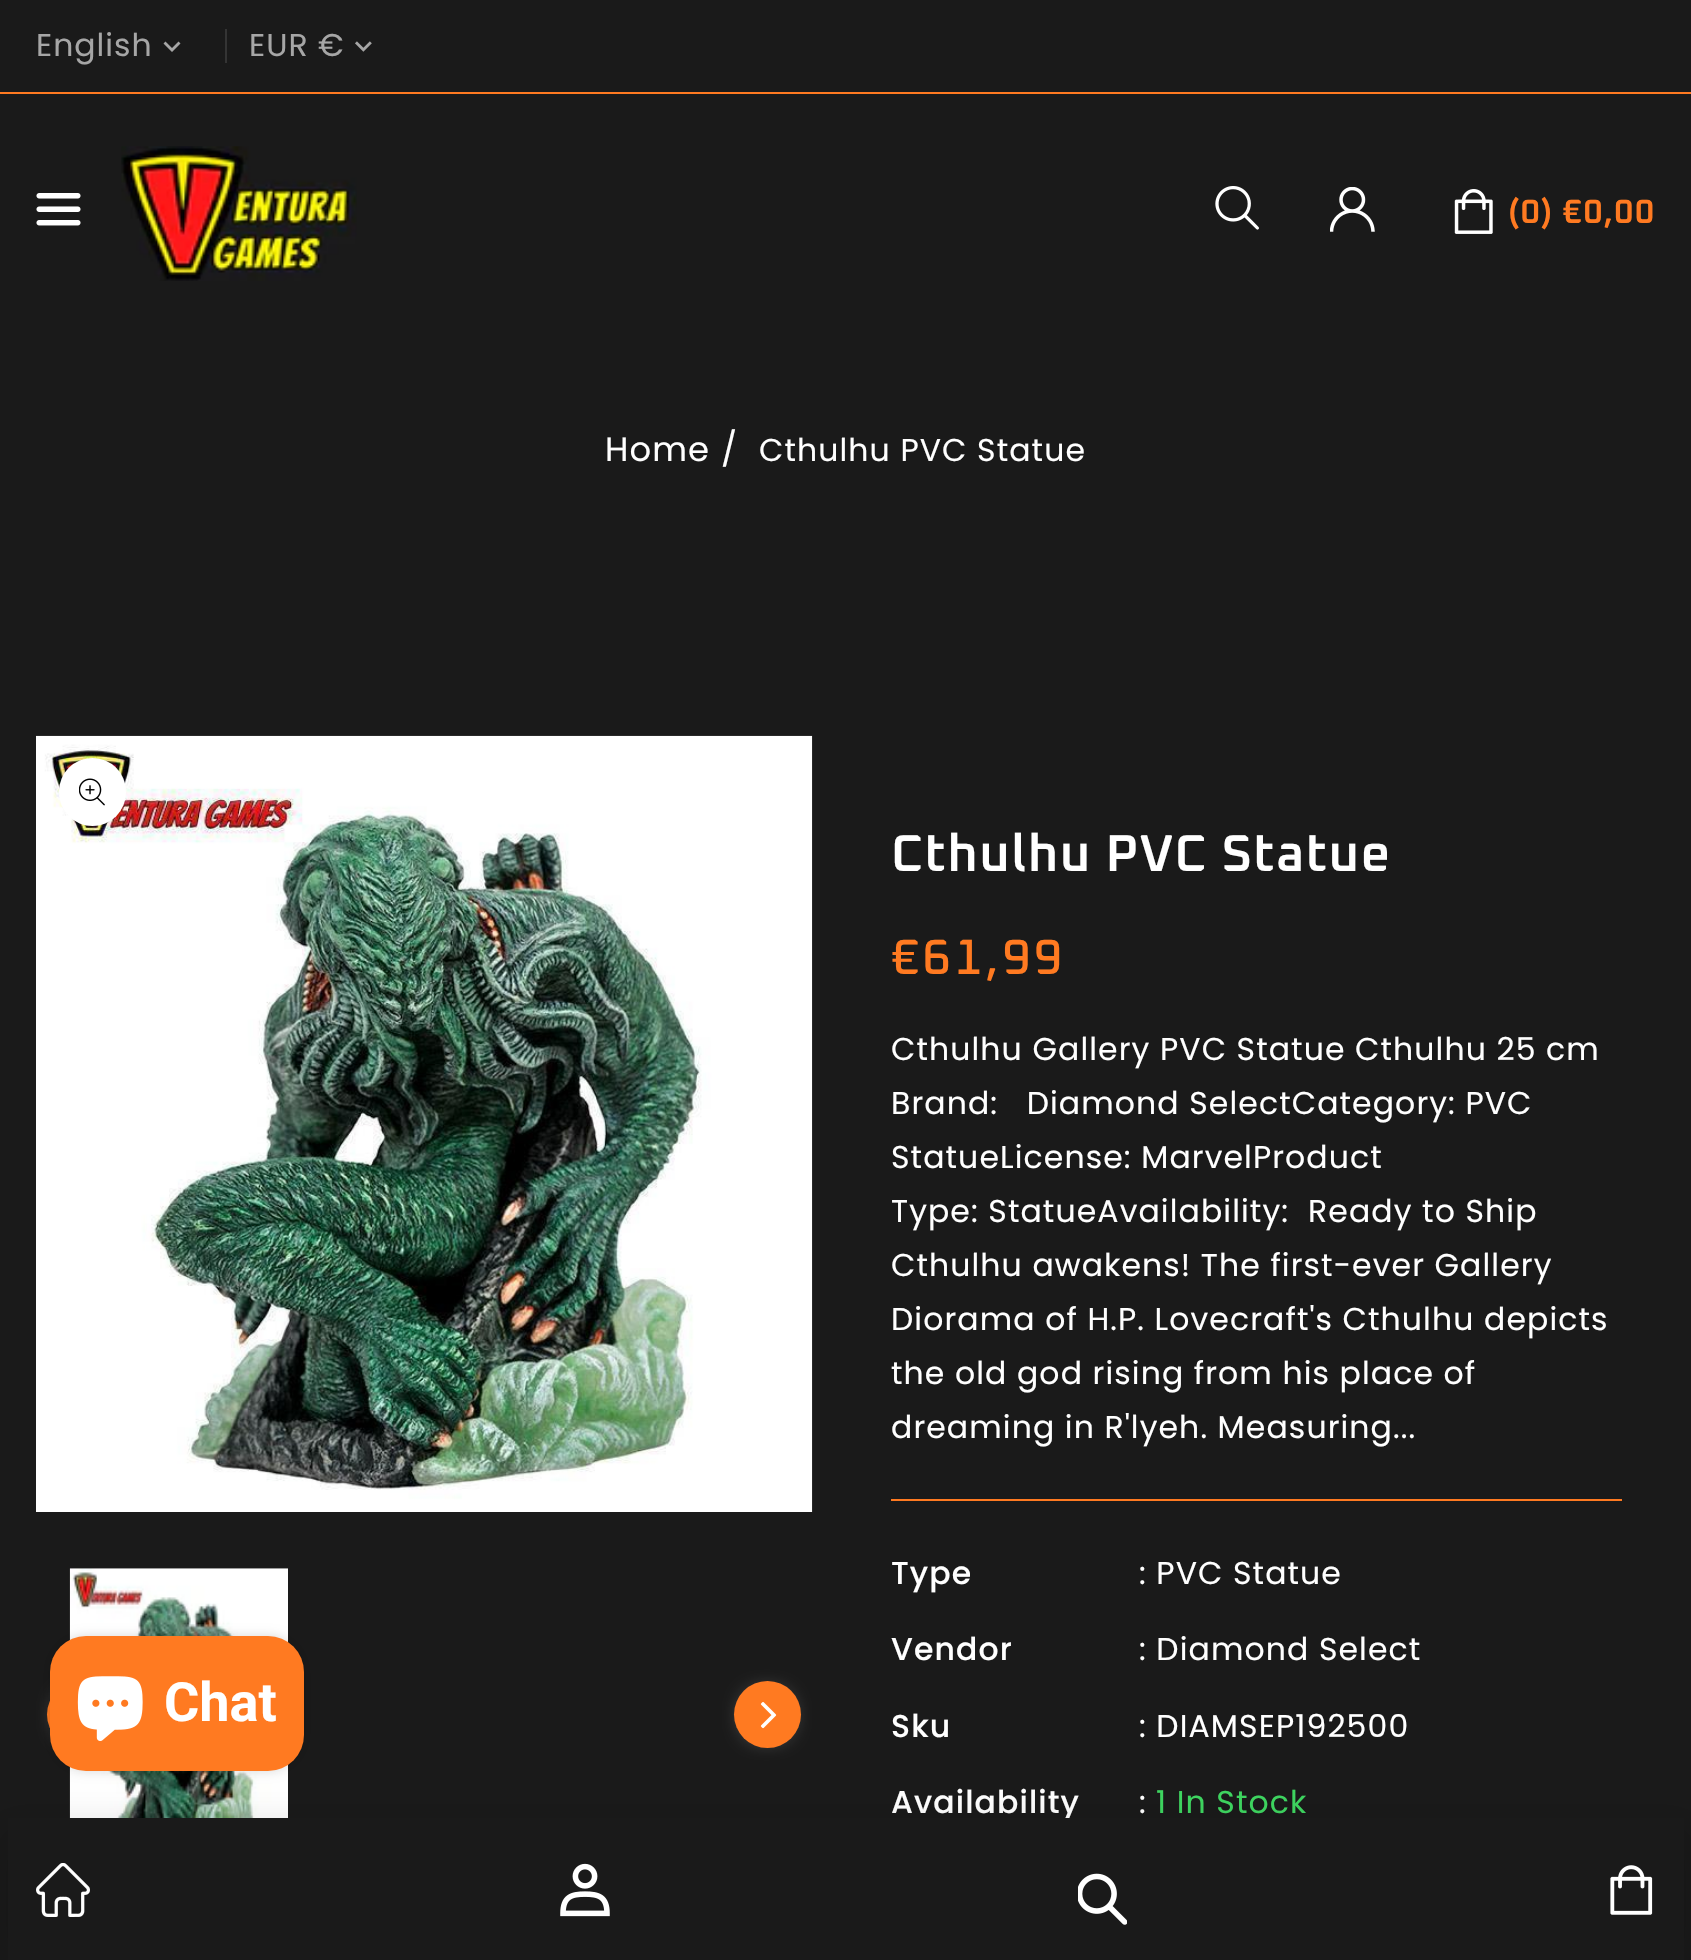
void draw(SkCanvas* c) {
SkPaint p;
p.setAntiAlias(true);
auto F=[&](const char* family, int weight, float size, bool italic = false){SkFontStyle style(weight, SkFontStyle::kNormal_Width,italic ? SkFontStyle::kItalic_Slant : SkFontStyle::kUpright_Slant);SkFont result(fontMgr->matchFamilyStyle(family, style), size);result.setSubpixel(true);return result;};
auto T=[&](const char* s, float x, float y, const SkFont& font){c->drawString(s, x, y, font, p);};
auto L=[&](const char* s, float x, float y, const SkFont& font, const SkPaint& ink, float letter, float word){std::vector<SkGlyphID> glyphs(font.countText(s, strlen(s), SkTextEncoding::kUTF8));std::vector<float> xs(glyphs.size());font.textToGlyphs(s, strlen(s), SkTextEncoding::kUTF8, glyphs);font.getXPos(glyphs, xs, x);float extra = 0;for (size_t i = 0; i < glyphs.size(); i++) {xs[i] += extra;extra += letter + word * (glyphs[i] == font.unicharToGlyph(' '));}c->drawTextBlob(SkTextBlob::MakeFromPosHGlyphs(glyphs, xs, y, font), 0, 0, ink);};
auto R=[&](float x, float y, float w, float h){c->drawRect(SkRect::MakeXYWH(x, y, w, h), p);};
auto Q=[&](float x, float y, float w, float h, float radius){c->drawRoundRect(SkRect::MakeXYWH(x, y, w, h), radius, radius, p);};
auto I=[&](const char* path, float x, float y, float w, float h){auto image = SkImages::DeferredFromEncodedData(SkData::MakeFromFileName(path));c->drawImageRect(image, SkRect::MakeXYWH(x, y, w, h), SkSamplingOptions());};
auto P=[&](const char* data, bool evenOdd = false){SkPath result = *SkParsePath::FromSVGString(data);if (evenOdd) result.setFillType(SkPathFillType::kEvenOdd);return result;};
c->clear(0xff1a1a1a);
p.setColor(0xffff7a21);
R(0,92,1691,2);
p.setColor(0xff343434);
R(225,29,2,34);
auto f1 = F("Poppins",400,31.5);
p.setColor(0xffa6a6a6);
L("English",36,56,f1,p,1,0);
c->drawPath(P("M178.5 41.5l-6.5 6.5l-6.5-6.5l-2 2l8.5 8.5l8.5-8.5z"),p);
L("EUR €",249,56,f1,p,1,0);
I("1.png",355,41,17,11);
I("2.png",36,193,45,33);
I("3.png",121,146,236,135);
I("4.png",1215,186,44,44);
I("5.png",1330,187,45,45);
I("6.png",1454,189,39,45);
auto f2 = F("Oxanium",600,33.75);
p.setColor(0xffff7a21);
L("(0) €0,00",1508,223,f2,p,1.1,0);
auto f3 = F("Poppins",400,33.75);
p.setColor(0xffffffff);
L("Home",605,461,f3,p,1.1,0);
L("/",721,461,f3,p,1.1,0);
L("Cthulhu PVC Statue",759,461,f1,p,1.1,0);
I("10.png",69,1568,219,250);
p.setMaskFilter(SkMaskFilter::MakeBlur(kNormal_SkBlurStyle, 12.5));
c->drawRoundRect(SkRect::MakeXYWH(63,1697,36,36),18,18,p);
p.setMaskFilter(nullptr);
p.setColor(0xffff7a21);
Q(47,1681,68,67,33.5);
p.setColor(0x26000000);
p.setMaskFilter(SkMaskFilter::MakeBlur(kNormal_SkBlurStyle, 5.5));
c->drawRoundRect(SkRect::MakeXYWH(50,1636,254,135),36,36,p);
p.setMaskFilter(nullptr);
p.setColor(0xffff7a21);
Q(50,1636,254,135,36);
I("7.png",77,1676,66,65);
auto f4 = F("Roboto",700,54);
p.setColor(0xffffffff);
T("Chat",164,1721,f4);
I("8.png",36,735,777,777);
Q(59,758,67,68,33.5);
p.setStroke(true);
p.setStrokeWidth(2);
p.setColor(0x1affffff);
c->drawRoundRect(SkRect::MakeXYWH(60,759,65,66),32.5,32.5,p);
I("9.png",79,778,26,28);
p.setStroke(false);
p.setColor(0xffffffff);
p.setMaskFilter(SkMaskFilter::MakeBlur(kNormal_SkBlurStyle, 12.5));
c->drawRoundRect(SkRect::MakeXYWH(749,1697,36,36),18,18,p);
p.setMaskFilter(nullptr);
p.setColor(0xffff7a21);
c->drawCircle(767.5,1714.5,33.5,p);
I("11.png",760,1702,17,27);
auto f5 = F("Oxanium",600,51.75);
p.setColor(0xffffffff);
L("Cthulhu PVC Statue",891,871,f5,p,1.4,0);
auto f6 = F("Oxanium",500,49.5);
p.setColor(0xffff7a21);
L("€61,99",891,974,f6,p,3,0);
R(891,1499,731,2);
p.setColor(0xffffffff);
L("Cthulhu Gallery PVC Statue Cthulhu 25 cm",891,1060,f1,p,1.1,0);
L("Brand:   Diamond SelectCategory: PVC",891,1114,f1,p,1.1,0);
L("StatueLicense: MarvelProduct",891,1168,f1,p,1.1,0);
L("Type: StatueAvailability:  Ready to Ship",891,1222,f1,p,1.1,0);
L("Cthulhu awakens! The first-ever Gallery",891,1276,f1,p,1.1,0);
L("Diorama of H.P. Lovecraft's Cthulhu depicts",891,1330,f1,p,1.1,0);
L("the old god rising from his place of",891,1384,f1,p,1.1,0);
L("dreaming in R'lyeh. Measuring...",891,1438,f1,p,1.1,0);
auto f7 = F("Poppins",500,31.5);
L("Type",891,1584,f7,p,1.1,0);
L(": PVC Statue",1139,1584,f1,p,1.1,0);
L("Vendor",891,1660,f7,p,1.1,0);
L(": Diamond Select",1139,1660,f1,p,1.1,0);
L("Sku",891,1737,f7,p,1.1,0);
L(": DIAMSEP192500",1139,1737,f1,p,1.1,0);
L("Availability",891,1813,f7,p,1.1,0);
L(":",1139,1813,f1,p,1.1,0);
p.setColor(0xff3ed660);
L("1 In Stock",1156,1813,f1,p,1.1,0);
p.setColor(0x26000000);
p.setMaskFilter(SkMaskFilter::MakeBlur(kNormal_SkBlurStyle, 18));
c->drawRect(SkRect::MakeXYWH(0,1827,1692,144),p);
p.setMaskFilter(nullptr);
p.setColor(0xff1a1a1a);
R(8,1818,1676,142);
I("12.png",36,1863,54,54);
I("13.png",560,1863,50,54);
I("14.png",1078,1873,49,52);
I("15.png",1610,1865,43,50);
}
